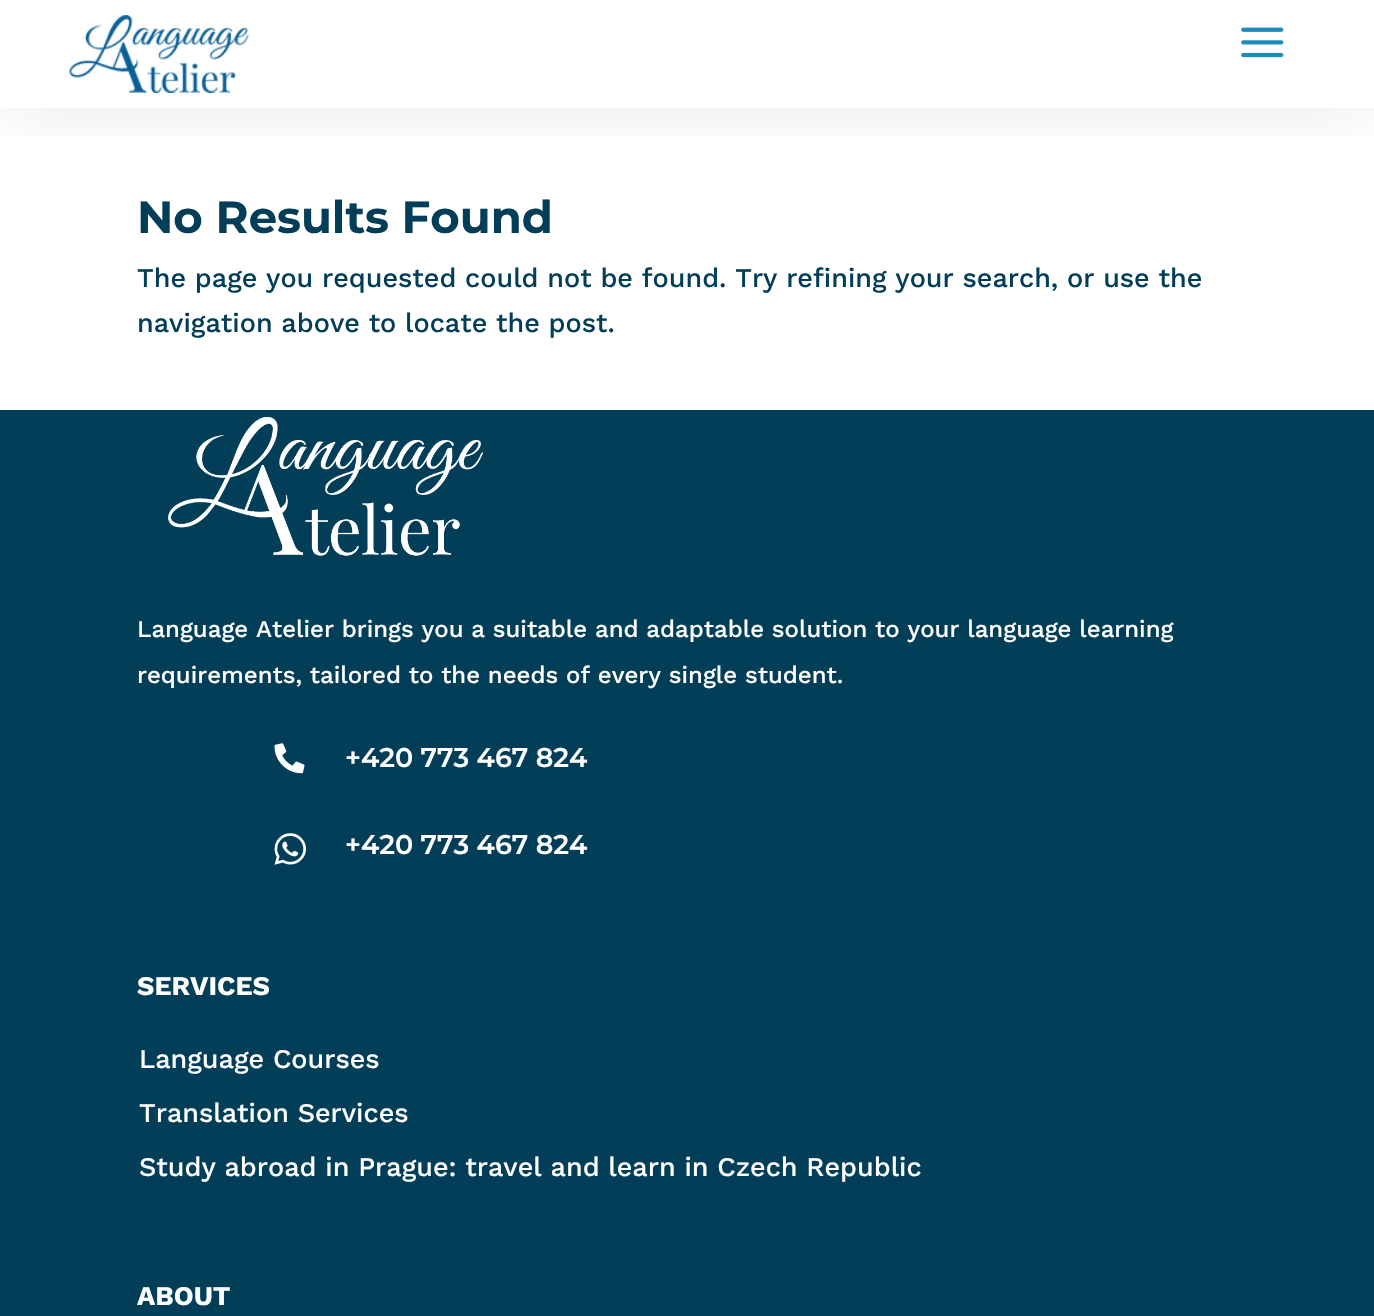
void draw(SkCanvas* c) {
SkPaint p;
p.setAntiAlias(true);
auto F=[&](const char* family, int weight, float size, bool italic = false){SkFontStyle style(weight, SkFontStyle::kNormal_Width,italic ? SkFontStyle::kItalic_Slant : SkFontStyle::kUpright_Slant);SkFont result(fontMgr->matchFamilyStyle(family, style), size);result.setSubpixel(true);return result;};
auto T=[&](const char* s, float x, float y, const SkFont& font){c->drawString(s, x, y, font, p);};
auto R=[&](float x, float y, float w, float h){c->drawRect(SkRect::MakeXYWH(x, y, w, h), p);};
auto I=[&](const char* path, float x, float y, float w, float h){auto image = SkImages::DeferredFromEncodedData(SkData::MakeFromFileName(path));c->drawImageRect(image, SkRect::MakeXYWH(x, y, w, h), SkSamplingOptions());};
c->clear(0xffffffff);
c->save();
c->clipRect(SkRect::MakeXYWH(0,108,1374,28));
p.setColor(0x14000000);
p.setMaskFilter(SkMaskFilter::MakeBlur(kNormal_SkBlurStyle, 37.5));
c->drawRect(SkRect::MakeXYWH(0,3,1374,108),p);
p.setMaskFilter(nullptr);
c->restore();
I("1.png",69,15,180,78);
I("2.png",1241,27,43,31);
auto f1 = F("Montserrat",700,45);
p.setColor(0xff023e58);
T("No Results Found",137,233,f1);
auto f2 = F("Work Sans",500,27);
T("The page you requested could not be found. Try refining your search, or use the",137,287,f2);
T("navigation above to locate the post.",137,332,f2);
R(0,410,1374,906);
I("3.png",168,417,315,139);
auto f3 = F("Work Sans",500,24);
p.setColor(0xffffffff);
T("Language Atelier brings you a suitable and adaptable solution to your language learning",137,637,f3);
T("requirements, tailored to the needs of every single student.",137,683,f3);
I("4.png",274,743,31,31);
auto f4 = F("Montserrat",600,27);
T("+420 773 467 824",345,767,f4);
I("5.png",274,833,32,32);
T("+420 773 467 824",345,854,f4);
auto f5 = F("Work Sans",700,27);
T("SERVICES",137,995,f5);
T("Language Courses",139,1068,f2);
T("Translation Services",139,1122,f2);
T("Study abroad in Prague: travel and learn in Czech Republic",139,1176,f2);
T("ABOUT",137,1305,f5);
}
